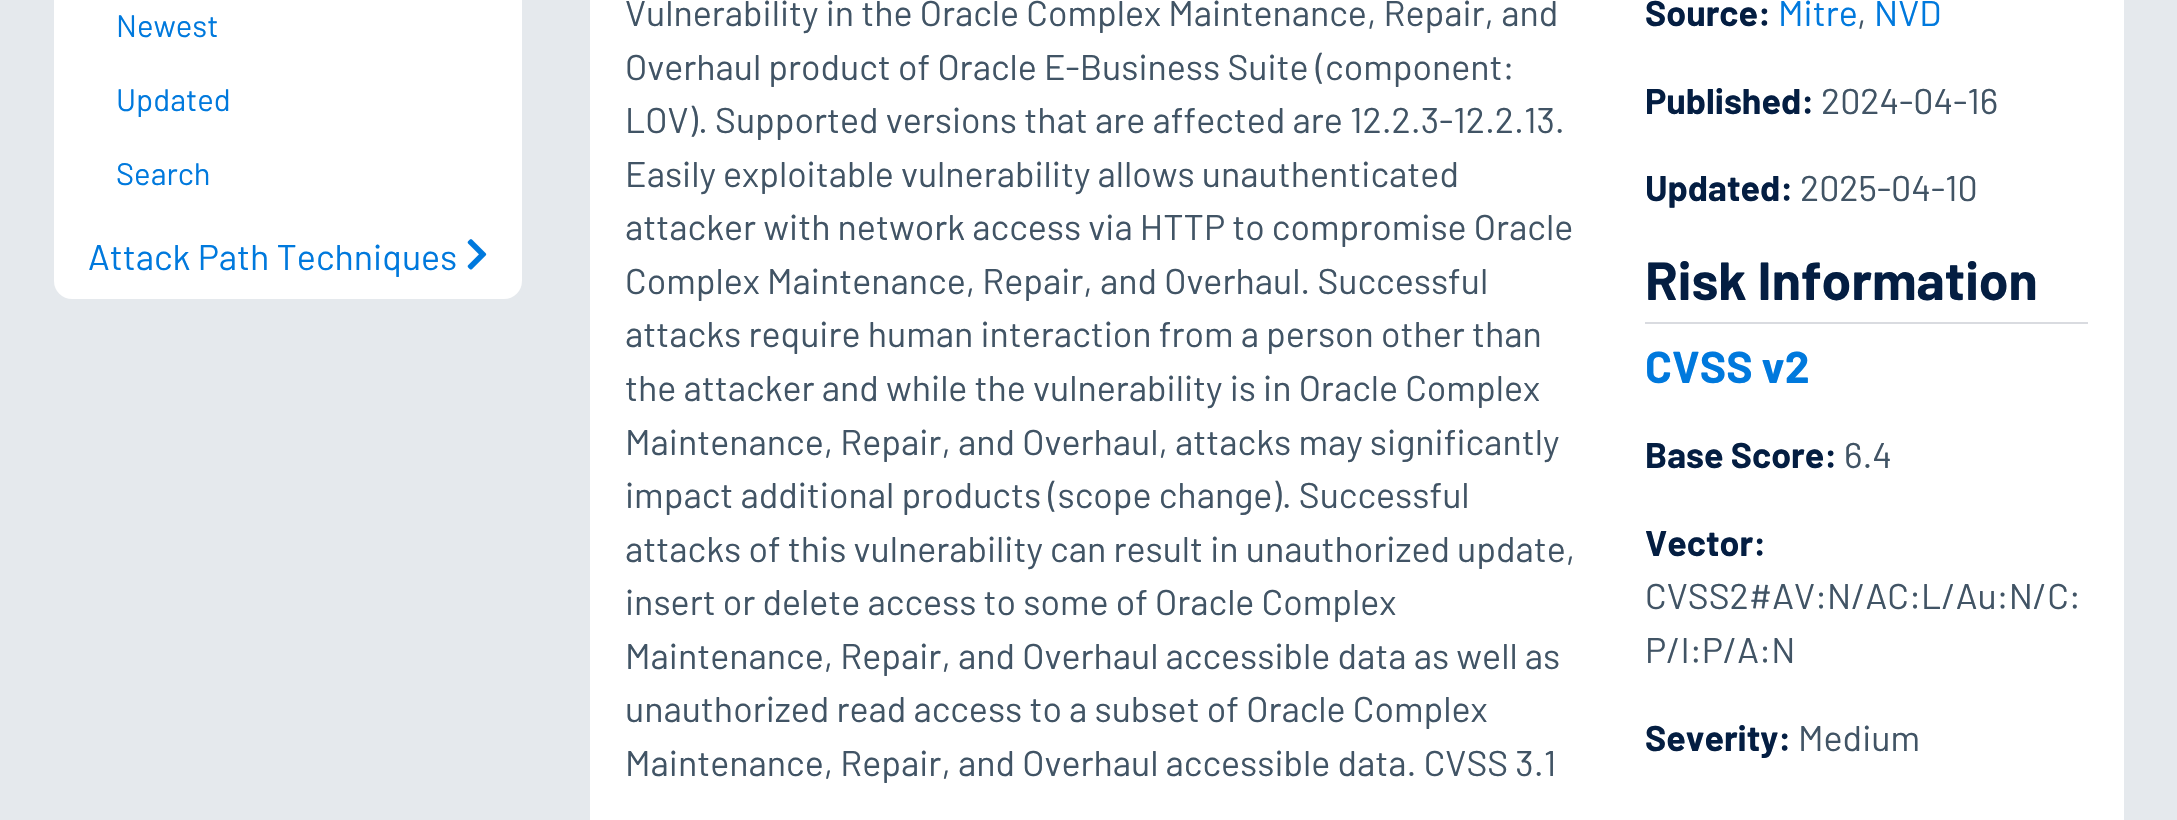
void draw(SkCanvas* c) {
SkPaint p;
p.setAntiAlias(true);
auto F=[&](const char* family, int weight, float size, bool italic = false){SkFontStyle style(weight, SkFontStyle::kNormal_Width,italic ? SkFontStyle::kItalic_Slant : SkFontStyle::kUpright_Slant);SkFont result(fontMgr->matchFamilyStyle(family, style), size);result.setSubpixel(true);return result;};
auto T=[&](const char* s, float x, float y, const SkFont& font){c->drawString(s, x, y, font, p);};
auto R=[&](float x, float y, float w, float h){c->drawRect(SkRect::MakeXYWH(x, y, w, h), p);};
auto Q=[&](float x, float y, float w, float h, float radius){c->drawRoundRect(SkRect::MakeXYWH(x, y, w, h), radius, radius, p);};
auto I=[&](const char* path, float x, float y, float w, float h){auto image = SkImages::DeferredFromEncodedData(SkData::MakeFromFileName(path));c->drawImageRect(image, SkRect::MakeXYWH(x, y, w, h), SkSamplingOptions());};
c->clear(0xffe5e9ed);
p.setColor(0xffffffff);
Q(54,-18,468,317,18);
auto f1 = F("Barlow",400,31);
p.setColor(0xff0079dd);
T("Newest",116,37,f1);
T("Updated",116,111,f1);
T("Search",116,185,f1);
auto f2 = F("Barlow",400,35.75);
T("Attack Path Techniques",88,270,f2);
I("1.png",467,239,20,31);
p.setColor(0xffffffff);
R(590,0,1534,820);
p.setColor(0xff415465);
T("Vulnerability in the Oracle Complex Maintenance, Repair, and",625,26,f2);
T("Overhaul product of Oracle E-Business Suite (component:",625,80,f2);
T("LOV). Supported versions that are affected are 12.2.3-12.2.13.",625,133,f2);
T("Easily exploitable vulnerability allows unauthenticated",625,187,f2);
T("attacker with network access via HTTP to compromise Oracle",625,240,f2);
T("Complex Maintenance, Repair, and Overhaul. Successful",625,294,f2);
T("attacks require human interaction from a person other than",625,347,f2);
T("the attacker and while the vulnerability is in Oracle Complex",625,401,f2);
T("Maintenance, Repair, and Overhaul, attacks may significantly",625,455,f2);
T("impact additional products (scope change). Successful",625,508,f2);
T("attacks of this vulnerability can result in unauthorized update,",625,562,f2);
T("insert or delete access to some of Oracle Complex",625,615,f2);
T("Maintenance, Repair, and Overhaul accessible data as well as",625,669,f2);
T("unauthorized read access to a subset of Oracle Complex",625,722,f2);
T("Maintenance, Repair, and Overhaul accessible data. CVSS 3.1",625,776,f2);
auto f3 = F("Barlow",700,35.75);
p.setColor(0xff041e42);
T("Source:",1645,26,f3);
p.setColor(0xff0079dd);
T("Mitre",1778,26,f2);
p.setColor(0xff415465);
T(",",1857,26,f2);
p.setColor(0xff0079dd);
T("NVD",1874,26,f2);
p.setColor(0xff041e42);
T("Published:",1645,114,f3);
p.setColor(0xff415465);
T("2024-04-16",1821,114,f2);
p.setColor(0xff041e42);
T("Updated:",1645,201,f3);
p.setColor(0xff415465);
T("2025-04-10",1800,201,f2);
p.setColor(0xffd9dbe0);
R(1645,322,443,2);
auto f4 = F("Barlow",700,53.5);
p.setColor(0xff041e42);
T("Risk Information",1645,300,f4);
auto f5 = F("Barlow",700,44.5);
p.setColor(0xff0079dd);
T("CVSS v2",1645,383,f5);
p.setColor(0xff041e42);
T("Base Score:",1645,468,f3);
p.setColor(0xff415465);
T("6.4",1844,468,f2);
p.setColor(0xff041e42);
T("Vector:",1645,556,f3);
p.setColor(0xff415465);
T("CVSS2#AV:N/AC:L/Au:N/C:",1645,609,f2);
T("P/I:P/A:N",1645,663,f2);
p.setColor(0xff041e42);
T("Severity:",1645,751,f3);
p.setColor(0xff415465);
T("Medium",1798,751,f2);
}
